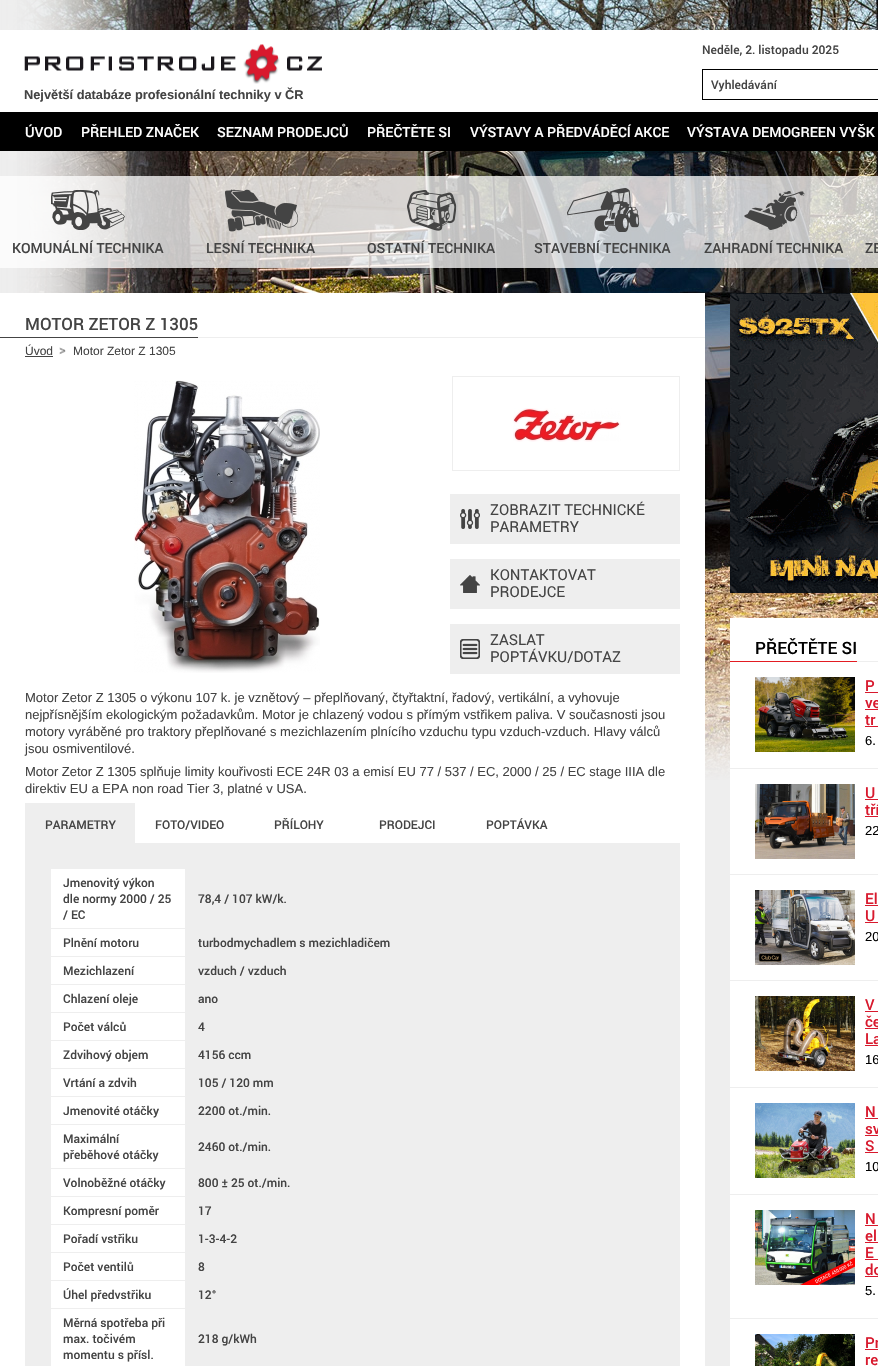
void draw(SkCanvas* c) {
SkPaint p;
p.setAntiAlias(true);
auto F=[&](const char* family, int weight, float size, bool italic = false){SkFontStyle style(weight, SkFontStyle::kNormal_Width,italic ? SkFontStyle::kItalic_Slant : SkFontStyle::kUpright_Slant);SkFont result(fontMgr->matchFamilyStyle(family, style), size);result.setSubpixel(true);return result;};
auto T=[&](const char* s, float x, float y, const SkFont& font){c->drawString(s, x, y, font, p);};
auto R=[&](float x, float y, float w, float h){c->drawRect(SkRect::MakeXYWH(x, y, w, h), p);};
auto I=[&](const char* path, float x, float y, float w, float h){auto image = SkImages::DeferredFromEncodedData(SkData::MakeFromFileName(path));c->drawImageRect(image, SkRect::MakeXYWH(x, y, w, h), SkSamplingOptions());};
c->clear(0xffeeeeee);
I("3.png",6,0,872,780);
I("2.png",0,0,182,293);
p.setColor(0xffffffff);
R(0,30,878,82);
auto f1 = F("Roboto",500,12);
p.setColor(0xff444444);
T("Neděle, 2. listopadu 2025",702,54,f1);
p.setStroke(true);
p.setStrokeWidth(1);
p.setColor(0xff000000);
c->drawRect(SkRect::MakeXYWH(702.5,69.5,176,30),p);
p.setStroke(false);
p.setColor(0xff444444);
T("Vyhledávání",711,89,f1);
I("1.png",24,44,298,40);
auto f2 = F("Liberation Sans",700,12.8);
T("Největší databáze profesionální techniky v ČR",24,99,f2);
p.setColor(0xff000000);
R(0,112,878,39);
auto f3 = F("Roboto",500,14);
p.setColor(0xffffffff);
T("ÚVOD",25,137,f3);
T("PŘEHLED ZNAČEK",81,137,f3);
T("SEZNAM PRODEJCŮ",217,137,f3);
T("PŘEČTĚTE SI",367,137,f3);
T("VÝSTAVY A PŘEDVÁDĚCÍ AKCE",470,137,f3);
T("VÝSTAVA DEMOGREEN VYŠK",687,137,f3);
I("4.png",705,616,173,169);
p.setColor(0xbfffffff);
R(0,176,175,92);
I("5.png",51,190,74,40);
p.setColor(0xff444444);
T("KOMUNÁLNÍ TECHNIKA",12,253,f3);
p.setColor(0xbfffffff);
R(175,176,171,92);
I("6.png",225,189,74,43);
p.setColor(0xff444444);
T("LESNÍ TECHNIKA",206,253,f3);
p.setColor(0xbfffffff);
R(346,176,171,92);
I("7.png",407,190,50,41);
p.setColor(0xff444444);
T("OSTATNÍ TECHNIKA",367,253,f3);
p.setColor(0xbfffffff);
R(517,176,171,92);
I("8.png",567,188,72,44);
p.setColor(0xff444444);
T("STAVEBNÍ TECHNIKA",534,253,f3);
p.setColor(0xbfffffff);
R(688,176,171,92);
I("9.png",744,191,61,39);
p.setColor(0xff444444);
T("ZAHRADNÍ TECHNIKA",704,253,f3);
p.setColor(0xbfffffff);
R(859,176,19,92);
p.setColor(0xff444444);
T("ZE",865,253,f3);
p.setColor(0xffffffff);
R(0,293,705,1073);
p.setColor(0xffeeeeee);
R(198,337,507,1);
p.setColor(0xff444444);
R(0,337,198,1);
auto f4 = F("Roboto",500,17);
T("MOTOR ZETOR Z 1305",25,330,f4);
auto f5 = F("Liberation Sans",400,12);
T("Úvod",25,355,f5);
R(25,356,28,1);
I("10.png",59,347,7,8);
T("Motor Zetor Z 1305",73,355,f5);
I("11.png",134,380,186,293);
p.setStroke(true);
p.setColor(0xffeeeeee);
c->drawRect(SkRect::MakeXYWH(452.5,376.5,227,94),p);
I("12.png",513,408,108,34);
p.setStroke(false);
R(450,494,230,50);
I("13.png",460,509,20,20);
auto f6 = F("Roboto",400,15);
p.setColor(0xff444444);
T("ZOBRAZIT TECHNICKÉ",490,515,f6);
T("PARAMETRY",490,532,f6);
p.setColor(0xffeeeeee);
R(450,559,230,50);
I("14.png",460,575,20,18);
p.setColor(0xff444444);
T("KONTAKTOVAT",490,580,f6);
T("PRODEJCE",490,597,f6);
p.setColor(0xffeeeeee);
R(450,624,230,50);
I("15.png",460,639,20,20);
p.setColor(0xff444444);
T("ZASLAT",490,645,f6);
T("POPTÁVKU/DOTAZ",490,662,f6);
auto f7 = F("Liberation Sans",400,13);
T("Motor Zetor Z 1305 o výkonu 107 k. je vznětový – přeplňovaný, čtyřtaktní, řadový, vertikální, a vyhovuje",25,702,f7);
T("nejpřísnějším ekologickým požadavkům. Motor je chlazený vodou s přímým vstřikem paliva. V současnosti jsou",25,719,f7);
T("motory vyráběné pro traktory přeplňované s mezichlazením plnícího vzduchu typu vzduch-vzduch. Hlavy válců",25,736,f7);
T("jsou osmiventilové.",25,753,f7);
T("Motor Zetor Z 1305 splňuje limity kouřivosti ECE 24R 03 a emisí EU 77 / 537 / EC, 2000 / 25 / EC stage IIIA dle",25,776,f7);
T("direktiv EU a EPA non road Tier 3, platné v USA.",25,793,f7);
p.setColor(0xffeeeeee);
R(25,803,110,40);
p.setColor(0xff444444);
T("PARAMETRY",45,829,f1);
T("FOTO/VIDEO",155,829,f1);
T("PŘÍLOHY",274,829,f1);
T("PRODEJCI",379,829,f1);
T("POPTÁVKA",486,829,f1);
p.setColor(0xffeeeeee);
R(25,843,655,523);
p.setColor(0xffffffff);
R(51,869,134,59);
p.setColor(0xff444444);
T("Jmenovitý výkon",63,887,f1);
T("dle normy 2000 / 25",63,903,f1);
T("/ EC",63,919,f1);
T("78,4 / 107 kW/k.",198,903,f1);
p.setColor(0xffffffff);
R(51,929,134,27);
p.setColor(0xff444444);
T("Plnění motoru",63,947,f1);
T("turbodmychadlem s mezichladičem",198,947,f1);
p.setColor(0xffffffff);
R(51,957,134,27);
p.setColor(0xff444444);
T("Mezichlazení",63,975,f1);
T("vzduch / vzduch",198,975,f1);
p.setColor(0xffffffff);
R(51,985,134,27);
p.setColor(0xff444444);
T("Chlazení oleje",63,1003,f1);
T("ano",198,1003,f1);
p.setColor(0xffffffff);
R(51,1013,134,27);
p.setColor(0xff444444);
T("Počet válců",63,1031,f1);
T("4",198,1031,f1);
p.setColor(0xffffffff);
R(51,1041,134,27);
p.setColor(0xff444444);
T("Zdvihový objem",63,1059,f1);
T("4156 ccm",198,1059,f1);
p.setColor(0xffffffff);
R(51,1069,134,27);
p.setColor(0xff444444);
T("Vrtání a zdvih",63,1087,f1);
T("105 / 120 mm",198,1087,f1);
p.setColor(0xffffffff);
R(51,1097,134,27);
p.setColor(0xff444444);
T("Jmenovité otáčky",63,1115,f1);
T("2200 ot./min.",198,1115,f1);
p.setColor(0xffffffff);
R(51,1125,134,43);
p.setColor(0xff444444);
T("Maximální",63,1143,f1);
T("přeběhové otáčky",63,1159,f1);
T("2460 ot./min.",198,1151,f1);
p.setColor(0xffffffff);
R(51,1169,134,27);
p.setColor(0xff444444);
T("Volnoběžné otáčky",63,1187,f1);
T("800 ± 25 ot./min.",198,1187,f1);
p.setColor(0xffffffff);
R(51,1197,134,27);
p.setColor(0xff444444);
T("Kompresní poměr",63,1215,f1);
T("17",198,1215,f1);
p.setColor(0xffffffff);
R(51,1225,134,27);
p.setColor(0xff444444);
T("Pořadí vstřiku",63,1243,f1);
T("1-3-4-2",198,1243,f1);
p.setColor(0xffffffff);
R(51,1253,134,27);
p.setColor(0xff444444);
T("Počet ventilů",63,1271,f1);
T("8",198,1271,f1);
p.setColor(0xffffffff);
R(51,1281,134,27);
p.setColor(0xff444444);
T("Úhel předvstřiku",63,1299,f1);
T("12°",198,1299,f1);
p.setColor(0xffffffff);
R(51,1309,134,57);
p.setColor(0xff444444);
T("Měrná spotřeba při",63,1327,f1);
T("max. točivém",63,1343,f1);
T("momentu s přísl.",63,1359,f1);
T("218 g/kWh",198,1343,f1);
I("16.png",730,293,148,300);
p.setColor(0xffffffff);
R(730,618,148,748);
p.setColor(0xffeeeeee);
R(857,661,21,1);
p.setColor(0xffe31b22);
R(730,661,127,1);
p.setColor(0xff000000);
T("PŘEČTĚTE SI",755,654,f4);
p.setColor(0xffeeeeee);
R(730,768,148,1);
I("17.png",755,677,100,75);
auto f8 = F("Roboto",500,15);
p.setColor(0xffd8192d);
T("P",865,691,f8);
R(865,692,13,1);
T("ve",865,708,f8);
R(865,709,13,1);
T("tr",865,725,f8);
R(865,726,13,1);
p.setColor(0xff000000);
T("6.",865,745,f7);
p.setColor(0xffeeeeee);
R(730,874,148,1);
I("18.png",755,784,100,75);
p.setColor(0xffd8192d);
T("U",865,798,f8);
R(865,799,13,1);
T("tří",865,815,f8);
R(865,816,13,1);
p.setColor(0xff000000);
T("22",865,835,f7);
p.setColor(0xffeeeeee);
R(730,980,148,1);
I("19.png",755,890,100,75);
p.setColor(0xffd8192d);
T("El",865,904,f8);
R(865,905,13,1);
T("U",865,921,f8);
R(865,922,13,1);
p.setColor(0xff000000);
T("20",865,941,f7);
p.setColor(0xffeeeeee);
R(730,1087,148,1);
I("20.png",755,996,100,75);
p.setColor(0xffd8192d);
T("V",865,1010,f8);
R(865,1011,13,1);
T("če",865,1027,f8);
R(865,1028,13,1);
T("La",865,1044,f8);
R(865,1045,13,1);
p.setColor(0xff000000);
T("16",865,1064,f7);
p.setColor(0xffeeeeee);
R(730,1194,148,1);
I("21.png",755,1103,100,75);
p.setColor(0xffd8192d);
T("N",865,1117,f8);
R(865,1118,13,1);
T("sv",865,1134,f8);
R(865,1135,13,1);
T("S",865,1151,f8);
R(865,1152,13,1);
p.setColor(0xff000000);
T("10",865,1171,f7);
p.setColor(0xffeeeeee);
R(730,1318,148,1);
I("22.png",755,1210,100,75);
p.setColor(0xffd8192d);
T("N",865,1224,f8);
R(865,1225,13,1);
T("el",865,1241,f8);
R(865,1242,13,1);
T("E",865,1258,f8);
R(865,1259,13,1);
T("do",865,1275,f8);
R(865,1276,13,1);
p.setColor(0xff000000);
T("5.",865,1295,f7);
I("23.png",755,1334,100,32);
p.setColor(0xffd8192d);
T("Pr",865,1348,f8);
R(865,1349,13,1);
T("re",865,1365,f8);
}
